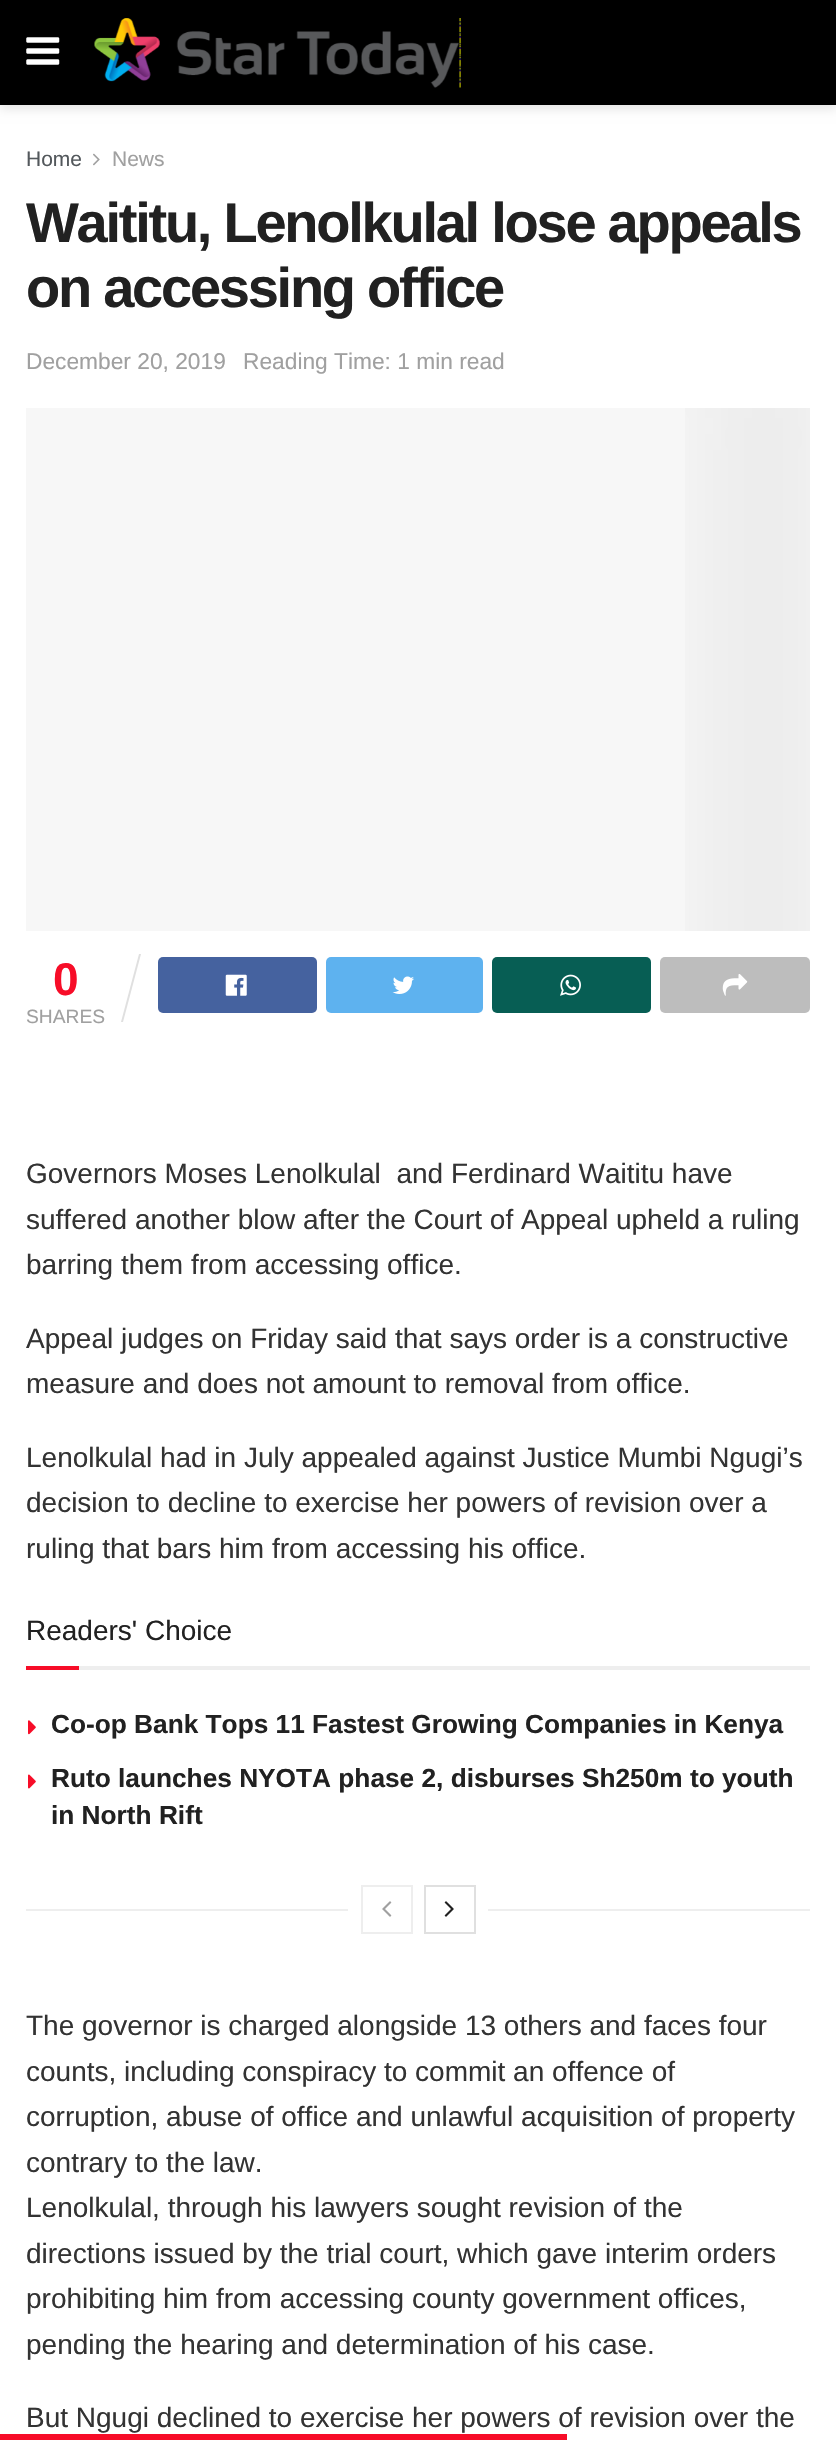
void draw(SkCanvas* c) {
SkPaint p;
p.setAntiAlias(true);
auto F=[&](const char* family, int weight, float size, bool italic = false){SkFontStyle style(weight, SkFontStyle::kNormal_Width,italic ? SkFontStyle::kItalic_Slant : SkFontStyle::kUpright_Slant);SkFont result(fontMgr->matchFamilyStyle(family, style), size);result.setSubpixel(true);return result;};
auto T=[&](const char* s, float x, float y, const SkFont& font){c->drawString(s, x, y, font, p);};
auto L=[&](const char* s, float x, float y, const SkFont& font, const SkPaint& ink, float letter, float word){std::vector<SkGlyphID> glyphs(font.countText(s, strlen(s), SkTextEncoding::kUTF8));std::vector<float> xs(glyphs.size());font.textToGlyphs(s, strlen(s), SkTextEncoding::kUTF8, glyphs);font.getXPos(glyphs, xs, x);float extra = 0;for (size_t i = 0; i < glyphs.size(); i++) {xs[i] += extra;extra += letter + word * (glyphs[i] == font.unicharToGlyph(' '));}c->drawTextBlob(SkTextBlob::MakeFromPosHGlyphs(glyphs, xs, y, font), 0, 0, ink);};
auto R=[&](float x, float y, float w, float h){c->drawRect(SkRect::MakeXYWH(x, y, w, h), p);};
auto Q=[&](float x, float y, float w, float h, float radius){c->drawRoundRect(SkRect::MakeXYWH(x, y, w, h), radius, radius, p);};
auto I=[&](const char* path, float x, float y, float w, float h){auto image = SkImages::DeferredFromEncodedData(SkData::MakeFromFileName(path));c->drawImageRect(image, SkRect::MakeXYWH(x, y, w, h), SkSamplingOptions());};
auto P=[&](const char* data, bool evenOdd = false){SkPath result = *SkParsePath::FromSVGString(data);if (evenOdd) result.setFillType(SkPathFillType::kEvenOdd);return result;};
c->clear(0xffffffff);
p.setColor(0x1a000000);
p.setMaskFilter(SkMaskFilter::MakeBlur(kNormal_SkBlurStyle, 5));
c->drawRect(SkRect::MakeXYWH(0,4,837,105),p);
p.setMaskFilter(nullptr);
p.setColor(0xff000000);
R(0,0,836,105);
I("1.png",26,37,34,28);
I("2.png",94,18,367,70);
auto f1 = F("Liberation Sans",400,21);
p.setColor(0xff53585c);
T("Home",26,166,f1);
I("3.png",93,153,7,13);
p.setColor(0xffa0a0a0);
T("News",112,166,f1);
auto f2 = F("Liberation Sans",700,56);
p.setColor(0xff212121);
L("Waititu, Lenolkulal lose appeals",26,242,f2,p,-2.25,0);
L("on accessing office",26,307,f2,p,-2.25,0);
auto f3 = F("Liberation Sans",400,22.75);
p.setColor(0xffa0a0a0);
T("December 20, 2019",26,369,f3);
T("Reading Time: 1 min read",243,369,f3);
p.setColor(0xfff7f7f7);
R(26,408,659,523);
I("4.png",685,408,125,523);
auto f4 = F("Liberation Sans",700,46);
p.setColor(0xfff70d28);
T("0",53,995,f4);
p.setColor(0xffe0e0e0);
c->drawPath(P("M139 954h2l-18 68h-2z"),p);
auto f5 = F("Liberation Sans",400,19.25);
p.setColor(0xffa0a0a0);
T("SHARES",26,1023,f5);
p.setColor(0xff45629f);
Q(158,957,159,56,5);
I("5.png",225,974,22,22);
p.setColor(0xff5eb2ef);
Q(326,957,157,56,5);
I("6.png",392,976,22,18);
p.setColor(0xff075e54);
Q(492,957,159,56,5);
I("7.png",560,974,21,22);
p.setColor(0xffbdbdbd);
Q(660,957,150,56,5);
I("8.png",722,974,26,22);
auto f6 = F("Liberation Sans",400,28);
p.setColor(0xff333333);
T("Governors Moses Lenolkulal  and Ferdinard Waititu have",26,1183,f6);
T("suffered another blow after the Court of Appeal upheld a ruling",26,1229,f6);
T("barring them from accessing office.",26,1274,f6);
T("Appeal judges on Friday said that says order is a constructive",26,1348,f6);
T("measure and does not amount to removal from office.",26,1393,f6);
T("Lenolkulal had in July appealed against Justice Mumbi Ngugi’s",26,1467,f6);
T("decision to decline to exercise her powers of revision over a",26,1512,f6);
T("ruling that bars him from accessing his office.",26,1558,f6);
p.setColor(0xffeeeeee);
R(79,1666,731,4);
p.setColor(0xff212121);
T("Readers' Choice",26,1640,f6);
p.setColor(0xfff70d28);
R(26,1666,53,4);
I("9.png",28,1720,8,15);
auto f7 = F("Liberation Sans",700,26.25);
p.setColor(0xff212121);
T("Co-op Bank Tops 11 Fastest Growing Companies in Kenya",51,1733,f7);
I("10.png",28,1774,8,15);
T("Ruto launches NYOTA phase 2, disburses Sh250m to youth",51,1787,f7);
T("in North Rift",51,1824,f7);
p.setColor(0xffeeeeee);
R(26,1909,322,2);
p.setStroke(true);
p.setStrokeWidth(2);
c->drawRect(SkRect::MakeXYWH(362,1886,50,47),p);
I("11.png",382,1901,10,16);
p.setColor(0xffe0e0e0);
c->drawRect(SkRect::MakeXYWH(425,1886,50,47),p);
I("12.png",444,1901,10,16);
p.setStroke(false);
p.setColor(0xffeeeeee);
R(488,1909,322,2);
p.setColor(0xff333333);
T("The governor is charged alongside 13 others and faces four",26,2035,f6);
T("counts, including conspiracy to commit an offence of",26,2081,f6);
T("corruption, abuse of office and unlawful acquisition of property",26,2126,f6);
T("contrary to the law.",26,2172,f6);
T("Lenolkulal, through his lawyers sought revision of the",26,2217,f6);
T("directions issued by the trial court, which gave interim orders",26,2263,f6);
T("prohibiting him from accessing county government offices,",26,2308,f6);
T("pending the hearing and determination of his case.",26,2354,f6);
T("But Ngugi declined to exercise her powers of revision over the",26,2427,f6);
p.setColor(0xfff70d28);
R(0,2434,567,6);
}
